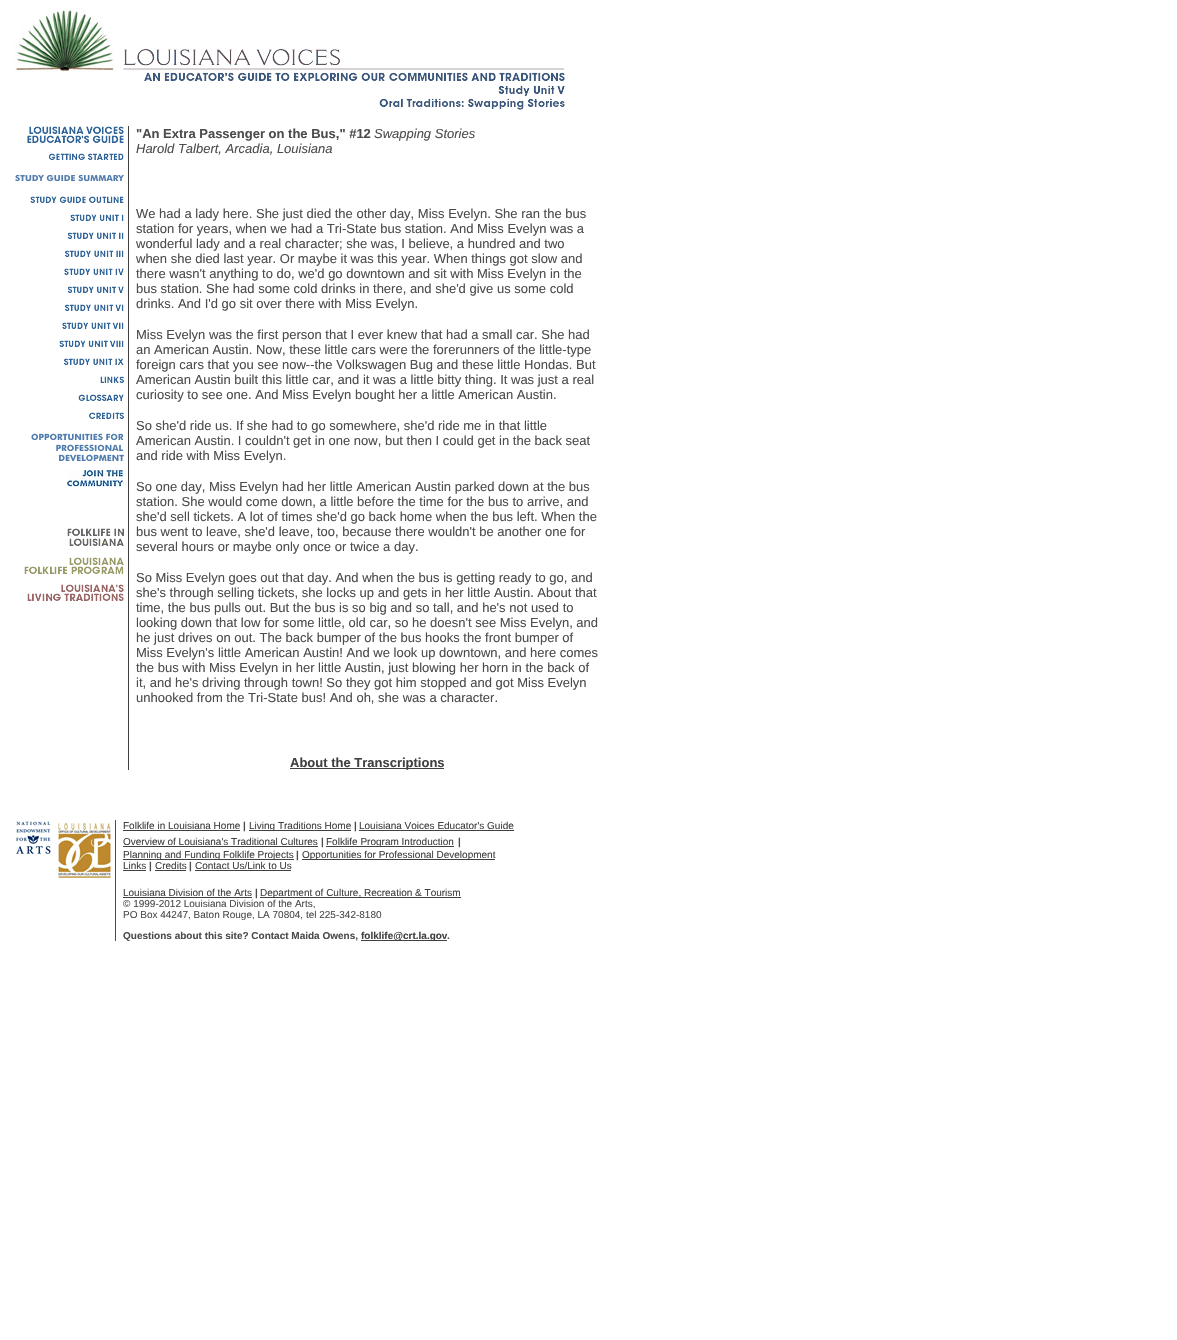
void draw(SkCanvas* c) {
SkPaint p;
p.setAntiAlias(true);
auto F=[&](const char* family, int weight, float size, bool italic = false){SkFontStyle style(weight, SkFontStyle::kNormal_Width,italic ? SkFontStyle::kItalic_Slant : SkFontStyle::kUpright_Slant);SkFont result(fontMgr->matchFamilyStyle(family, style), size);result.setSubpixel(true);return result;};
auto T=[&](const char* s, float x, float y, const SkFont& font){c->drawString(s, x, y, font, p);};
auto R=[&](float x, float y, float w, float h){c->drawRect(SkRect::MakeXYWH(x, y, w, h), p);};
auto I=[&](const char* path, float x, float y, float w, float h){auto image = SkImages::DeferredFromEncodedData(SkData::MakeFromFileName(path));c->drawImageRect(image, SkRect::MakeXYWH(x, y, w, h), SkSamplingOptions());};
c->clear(0xffffffff);
I("1.png",14,8,101,64);
I("2.png",123,49,442,61);
I("3.png",27,126,97,17);
I("4.png",48,153,76,7);
I("5.png",15,174,109,8);
I("6.png",30,196,94,7);
I("7.png",70,214,54,7);
I("8.png",67,232,57,7);
I("9.png",65,250,59,7);
I("10.png",64,268,60,7);
I("11.png",67,286,57,7);
I("12.png",65,304,59,7);
I("13.png",62,322,62,7);
I("14.png",59,340,65,7);
I("15.png",64,358,60,7);
I("16.png",100,376,24,7);
I("17.png",78,394,46,7);
I("18.png",89,412,35,7);
I("19.png",31,433,93,29);
I("20.png",67,470,57,17);
I("21.png",67,528,57,19);
I("22.png",24,557,100,17);
I("23.png",27,584,97,17);
p.setColor(0xff404040);
R(128,126,1,644);
auto f1 = F("Liberation Sans",700,13);
p.setColor(0xff4c4c4c);
T("\"An Extra Passenger on the Bus,\" #12",136,138,f1);
auto f2 = F("Liberation Sans",400,13,true);
T("Swapping Stories",374,138,f2);
T("Harold Talbert, Arcadia, Louisiana",136,153,f2);
auto f3 = F("Liberation Sans",400,13);
T("We had a lady here. She just died the other day, Miss Evelyn. She ran the bus",136,218,f3);
T("station for years, when we had a Tri-State bus station. And Miss Evelyn was a",136,233,f3);
T("wonderful lady and a real character; she was, I believe, a hundred and two",136,248,f3);
T("when she died last year. Or maybe it was this year. When things got slow and",136,263,f3);
T("there wasn't anything to do, we'd go downtown and sit with Miss Evelyn in the",136,278,f3);
T("bus station. She had some cold drinks in there, and she'd give us some cold",136,293,f3);
T("drinks. And I'd go sit over there with Miss Evelyn.",136,308,f3);
T("Miss Evelyn was the first person that I ever knew that had a small car. She had",136,339,f3);
T("an American Austin. Now, these little cars were the forerunners of the little-type",136,354,f3);
T("foreign cars that you see now--the Volkswagen Bug and these little Hondas. But",136,369,f3);
T("American Austin built this little car, and it was a little bitty thing. It was just a real",136,384,f3);
T("curiosity to see one. And Miss Evelyn bought her a little American Austin.",136,399,f3);
T("So she'd ride us. If she had to go somewhere, she'd ride me in that little",136,430,f3);
T("American Austin. I couldn't get in one now, but then I could get in the back seat",136,445,f3);
T("and ride with Miss Evelyn.",136,460,f3);
T("So one day, Miss Evelyn had her little American Austin parked down at the bus",136,491,f3);
T("station. She would come down, a little before the time for the bus to arrive, and",136,506,f3);
T("she'd sell tickets. A lot of times she'd go back home when the bus left. When the",136,521,f3);
T("bus went to leave, she'd leave, too, because there wouldn't be another one for",136,536,f3);
T("several hours or maybe only once or twice a day.",136,551,f3);
T("So Miss Evelyn goes out that day. And when the bus is getting ready to go, and",136,582,f3);
T("she's through selling tickets, she locks up and gets in her little Austin. About that",136,597,f3);
T("time, the bus pulls out. But the bus is so big and so tall, and he's not used to",136,612,f3);
T("looking down that low for some little, old car, so he doesn't see Miss Evelyn, and",136,627,f3);
T("he just drives on out. The back bumper of the bus hooks the front bumper of",136,642,f3);
T("Miss Evelyn's little American Austin! And we look up downtown, and here comes",136,657,f3);
T("the bus with Miss Evelyn in her little Austin, just blowing her horn in the back of",136,672,f3);
T("it, and he's driving through town! So they got him stopped and got Miss Evelyn",136,687,f3);
T("unhooked from the Tri-State bus! And oh, she was a character.",136,702,f3);
p.setColor(0xff404040);
R(290,768,154,1);
T("About the Transcriptions",290,767,f1);
I("24.png",16,821,35,34);
I("25.png",54,821,57,57);
p.setColor(0xff4c4c4c);
R(115,820,1,121);
auto f4 = F("Liberation Sans",400,10);
p.setColor(0xff404040);
T("Folklife in Louisiana Home",123,829,f4);
R(123,830,117,1);
auto f5 = F("Liberation Sans",700,10);
p.setColor(0xff4c4c4c);
T("|",243,829,f5);
p.setColor(0xff404040);
R(249,830,102,1);
T("Living Traditions Home",249,829,f4);
p.setColor(0xff4c4c4c);
T("|",354,829,f5);
p.setColor(0xff404040);
T("Louisiana Voices Educator's Guide",359,829,f4);
R(359,830,155,1);
T("Overview of Louisiana's Traditional Cultures",123,845,f4);
R(123,846,195,1);
p.setColor(0xff4c4c4c);
T("|",321,845,f5);
p.setColor(0xff404040);
R(326,846,128,1);
T("Folklife Program Introduction",326,845,f4);
p.setColor(0xff4c4c4c);
T("|",458,845,f5);
p.setColor(0xff404040);
R(123,859,171,1);
T("Planning and Funding Folklife Projects",123,858,f4);
p.setColor(0xff4c4c4c);
T("|",296,858,f5);
p.setColor(0xff404040);
R(302,859,193,1);
T("Opportunities for Professional Development",302,858,f4);
T("Links",123,869,f4);
R(123,870,23,1);
p.setColor(0xff4c4c4c);
T("|",149,869,f5);
p.setColor(0xff404040);
T("Credits",155,869,f4);
R(155,870,31,1);
p.setColor(0xff4c4c4c);
T("|",189,869,f5);
p.setColor(0xff404040);
T("Contact Us/Link to Us",195,869,f4);
R(195,870,96,1);
T("Louisiana Division of the Arts",123,896,f4);
R(123,897,129,1);
p.setColor(0xff4c4c4c);
T("|",255,896,f5);
p.setColor(0xff404040);
R(260,897,201,1);
T("Department of Culture, Recreation & Tourism",260,896,f4);
p.setColor(0xff4c4c4c);
T("© 1999-2012 Louisiana Division of the Arts,",123,907,f4);
T("PO Box 44247, Baton Rouge, LA 70804, tel 225-342-8180",123,918,f4);
T("Questions about this site? Contact Maida Owens,",123,939,f5);
p.setColor(0xff404040);
R(361,940,86,1);
T("folklife@crt.la.gov",361,939,f5);
p.setColor(0xff4c4c4c);
T(".",447,939,f5);
}
